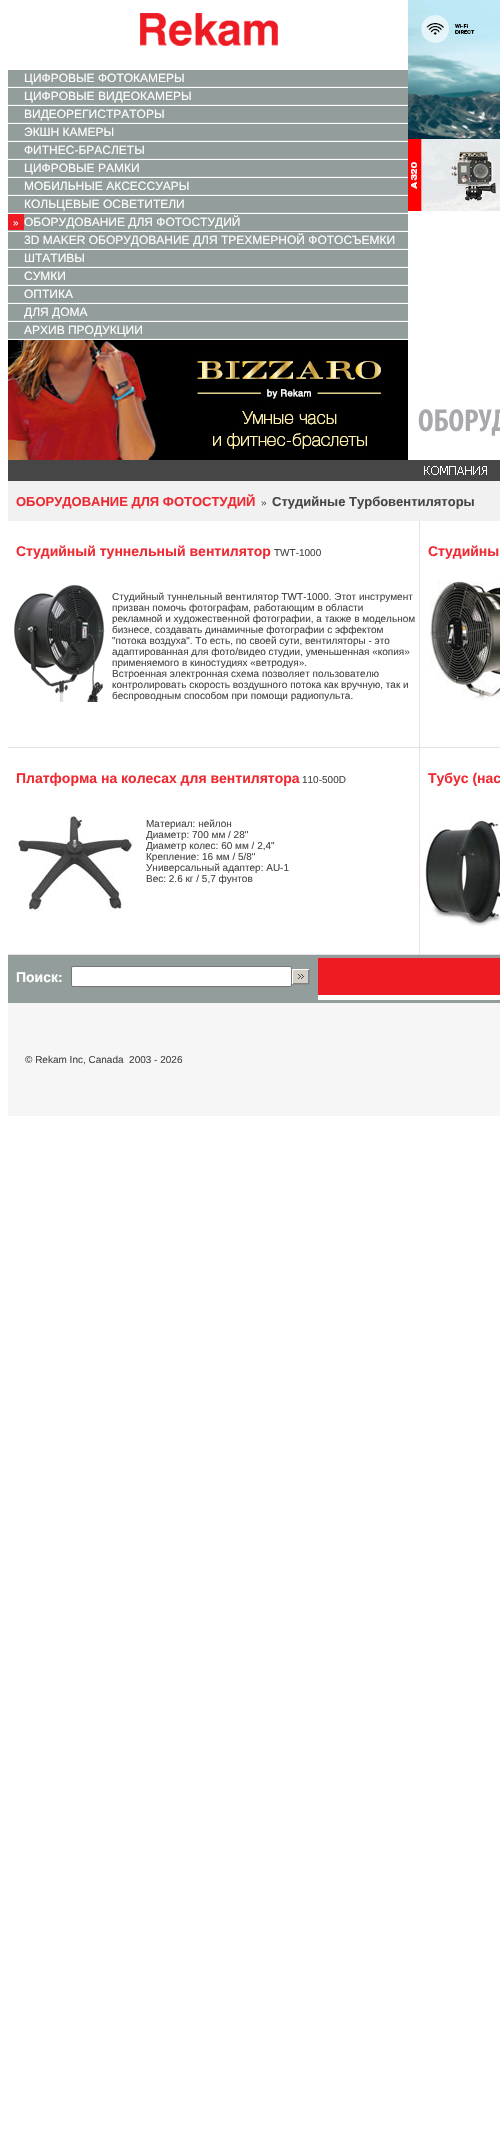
void draw(SkCanvas* c) {
SkPaint p;
p.setAntiAlias(true);
auto F=[&](const char* family, int weight, float size, bool italic = false){SkFontStyle style(weight, SkFontStyle::kNormal_Width,italic ? SkFontStyle::kItalic_Slant : SkFontStyle::kUpright_Slant);SkFont result(fontMgr->matchFamilyStyle(family, style), size);result.setSubpixel(true);return result;};
auto T=[&](const char* s, float x, float y, const SkFont& font){c->drawString(s, x, y, font, p);};
auto R=[&](float x, float y, float w, float h){c->drawRect(SkRect::MakeXYWH(x, y, w, h), p);};
auto I=[&](const char* path, float x, float y, float w, float h){auto image = SkImages::DeferredFromEncodedData(SkData::MakeFromFileName(path));c->drawImageRect(image, SkRect::MakeXYWH(x, y, w, h), SkSamplingOptions());};
c->clear(0xffffffff);
I("1.png",140,13,138,33);
p.setColor(0xff939d9b);
R(8,70,400,16);
auto f1 = F("Liberation Sans",400,12);
p.setColor(0xffffffff);
T("ЦИФРОВЫЕ ФОТОКАМЕРЫ",24,82,f1);
p.setColor(0xffa0aba9);
R(8,86,400,1);
p.setColor(0xff939d9b);
R(8,88,400,16);
p.setColor(0xffffffff);
T("ЦИФРОВЫЕ ВИДЕОКАМЕРЫ",24,100,f1);
p.setColor(0xffa0aba9);
R(8,104,400,1);
p.setColor(0xff939d9b);
R(8,106,400,16);
p.setColor(0xffffffff);
T("ВИДЕОРЕГИСТРАТОРЫ",24,118,f1);
p.setColor(0xffa0aba9);
R(8,122,400,1);
p.setColor(0xff939d9b);
R(8,124,400,16);
p.setColor(0xffffffff);
T("ЭКШН КАМЕРЫ",24,136,f1);
p.setColor(0xffa0aba9);
R(8,140,400,1);
p.setColor(0xff939d9b);
R(8,142,400,16);
p.setColor(0xffffffff);
T("ФИТНЕС-БРАСЛЕТЫ",24,154,f1);
p.setColor(0xffa0aba9);
R(8,158,400,1);
p.setColor(0xff939d9b);
R(8,160,400,16);
p.setColor(0xffffffff);
T("ЦИФРОВЫЕ РАМКИ",24,172,f1);
p.setColor(0xffa0aba9);
R(8,176,400,1);
p.setColor(0xff939d9b);
R(8,178,400,16);
p.setColor(0xffffffff);
T("МОБИЛЬНЫЕ АКСЕССУАРЫ",24,190,f1);
p.setColor(0xffa0aba9);
R(8,194,400,1);
p.setColor(0xff939d9b);
R(8,196,400,16);
p.setColor(0xffffffff);
T("КОЛЬЦЕВЫЕ ОСВЕТИТЕЛИ",24,208,f1);
p.setColor(0xffa0aba9);
R(8,212,400,1);
p.setColor(0xffed1c22);
R(8,214,16,16);
auto f2 = F("Liberation Sans",400,10);
p.setColor(0xffffffff);
T("»",13,226,f2);
p.setColor(0xff939d9b);
R(24,214,384,16);
p.setColor(0xffffffff);
T("ОБОРУДОВАНИЕ ДЛЯ ФОТОСТУДИЙ",24,226,f1);
p.setColor(0xffa0aba9);
R(8,230,400,1);
p.setColor(0xff939d9b);
R(8,232,400,16);
p.setColor(0xffffffff);
T("3D MAKER ОБОРУДОВАНИЕ ДЛЯ ТРЕХМЕРНОЙ ФОТОСЪЕМКИ",24,244,f1);
p.setColor(0xffa0aba9);
R(8,248,400,1);
p.setColor(0xff939d9b);
R(8,250,400,16);
p.setColor(0xffffffff);
T("ШТАТИВЫ",24,262,f1);
p.setColor(0xffa0aba9);
R(8,266,400,1);
p.setColor(0xff939d9b);
R(8,268,400,16);
p.setColor(0xffffffff);
T("СУМКИ",24,280,f1);
p.setColor(0xffa0aba9);
R(8,284,400,1);
p.setColor(0xff939d9b);
R(8,286,400,16);
p.setColor(0xffffffff);
T("ОПТИКА",24,298,f1);
p.setColor(0xffa0aba9);
R(8,302,400,1);
p.setColor(0xff939d9b);
R(8,304,400,16);
p.setColor(0xffffffff);
T("ДЛЯ ДОМА",24,316,f1);
p.setColor(0xffa0aba9);
R(8,320,400,1);
p.setColor(0xff939d9b);
R(8,322,400,16);
p.setColor(0xffffffff);
T("АРХИВ ПРОДУКЦИИ",24,334,f1);
p.setColor(0xffa0aba9);
R(8,338,400,1);
I("2.png",8,340,400,120);
I("3.png",408,0,92,211);
I("4.png",418,409,82,27);
p.setColor(0xff464646);
R(8,460,492,21);
I("5.png",424,466,63,9);
p.setColor(0xfff1f1f1);
R(8,481,492,40);
auto f3 = F("Liberation Sans",700,13);
p.setColor(0xffee2b33);
T("ОБОРУДОВАНИЕ ДЛЯ ФОТОСТУДИЙ",16,506,f3);
p.setColor(0xff464646);
T("»",261,506,f2);
T("Студийные Турбовентиляторы",272,506,f3);
auto f4 = F("Liberation Sans",700,14);
p.setColor(0xffee2b33);
T("Cтудийный туннельный вентилятор",16,556,f4);
p.setColor(0xff464646);
T("TWT-1000",274,556,f2);
I("6.png",14,584,91,118);
T("Студийный туннельный вентилятор TWT-1000. Этот инструмент",112,600,f2);
T("призван помочь фотографам, работающим в области",112,611,f2);
T("рекламной и художественной фотографии, а также в модельном",112,622,f2);
T("бизнесе, создавать динамичные фотографии с эффектом",112,633,f2);
T("\"потока воздуха\". То есть, по своей сути, вентиляторы - это",112,644,f2);
T("адаптированная для фото/видео студии, уменьшенная «копия»",112,655,f2);
T("применяемого в киностудиях «ветродуя».",112,666,f2);
T("Встроенная электронная схема позволяет пользователю",112,677,f2);
T("контролировать скорость воздушного потока как вручную, так и",112,688,f2);
T("беспроводным способом при помощи радиопульта.",112,699,f2);
p.setColor(0xffe2e2e2);
R(419,521,1,226);
p.setColor(0xffee2b33);
T("Cтудийны",428,556,f4);
I("7.png",430,581,70,120);
p.setColor(0xffe2e2e2);
R(8,747,492,1);
p.setColor(0xffee2b33);
T("Платформа на колесах для вентилятора",16,783,f4);
p.setColor(0xff464646);
T("110-500D",302,783,f2);
I("8.png",11,816,123,96);
T("Материал: нейлон",146,827,f2);
T("Диаметр: 700 мм / 28\"",146,838,f2);
T("Диаметр колес: 60 мм / 2,4\"",146,849,f2);
T("Крепление: 16 мм / 5/8\"",146,860,f2);
T("Универсальный адаптер: AU-1",146,871,f2);
T("Вес: 2.6 кг / 5,7 фунтов",146,882,f2);
p.setColor(0xffe2e2e2);
R(419,748,1,206);
p.setColor(0xffee2b33);
T("Тубус (нас",428,783,f4);
I("9.png",422,816,78,111);
p.setColor(0xffe2e2e2);
R(8,954,492,1);
p.setColor(0xff939d9c);
R(8,955,492,3);
p.setColor(0xff939d9b);
R(8,958,310,42);
p.setColor(0xffffffff);
T("Поиск:",16,982,f4);
c->drawRoundRect(SkRect::MakeXYWH(71.5,966.5,220,20),1.5,1.5,p);
p.setStroke(true);
p.setStrokeWidth(1);
p.setColor(0xff767676);
c->drawRoundRect(SkRect::MakeXYWH(71.5,966.5,220,20),1.5,1.5,p);
I("10.png",292,969,18,16);
p.setStroke(false);
p.setColor(0xffed1c24);
R(318,958,182,37);
p.setColor(0xfff6f6f6);
R(8,1003,492,113);
p.setColor(0xff939d9c);
R(8,1000,492,3);
p.setColor(0xff464646);
T("© Rekam Inc, Canada  2003 - 2026",25,1063,f2);
}
